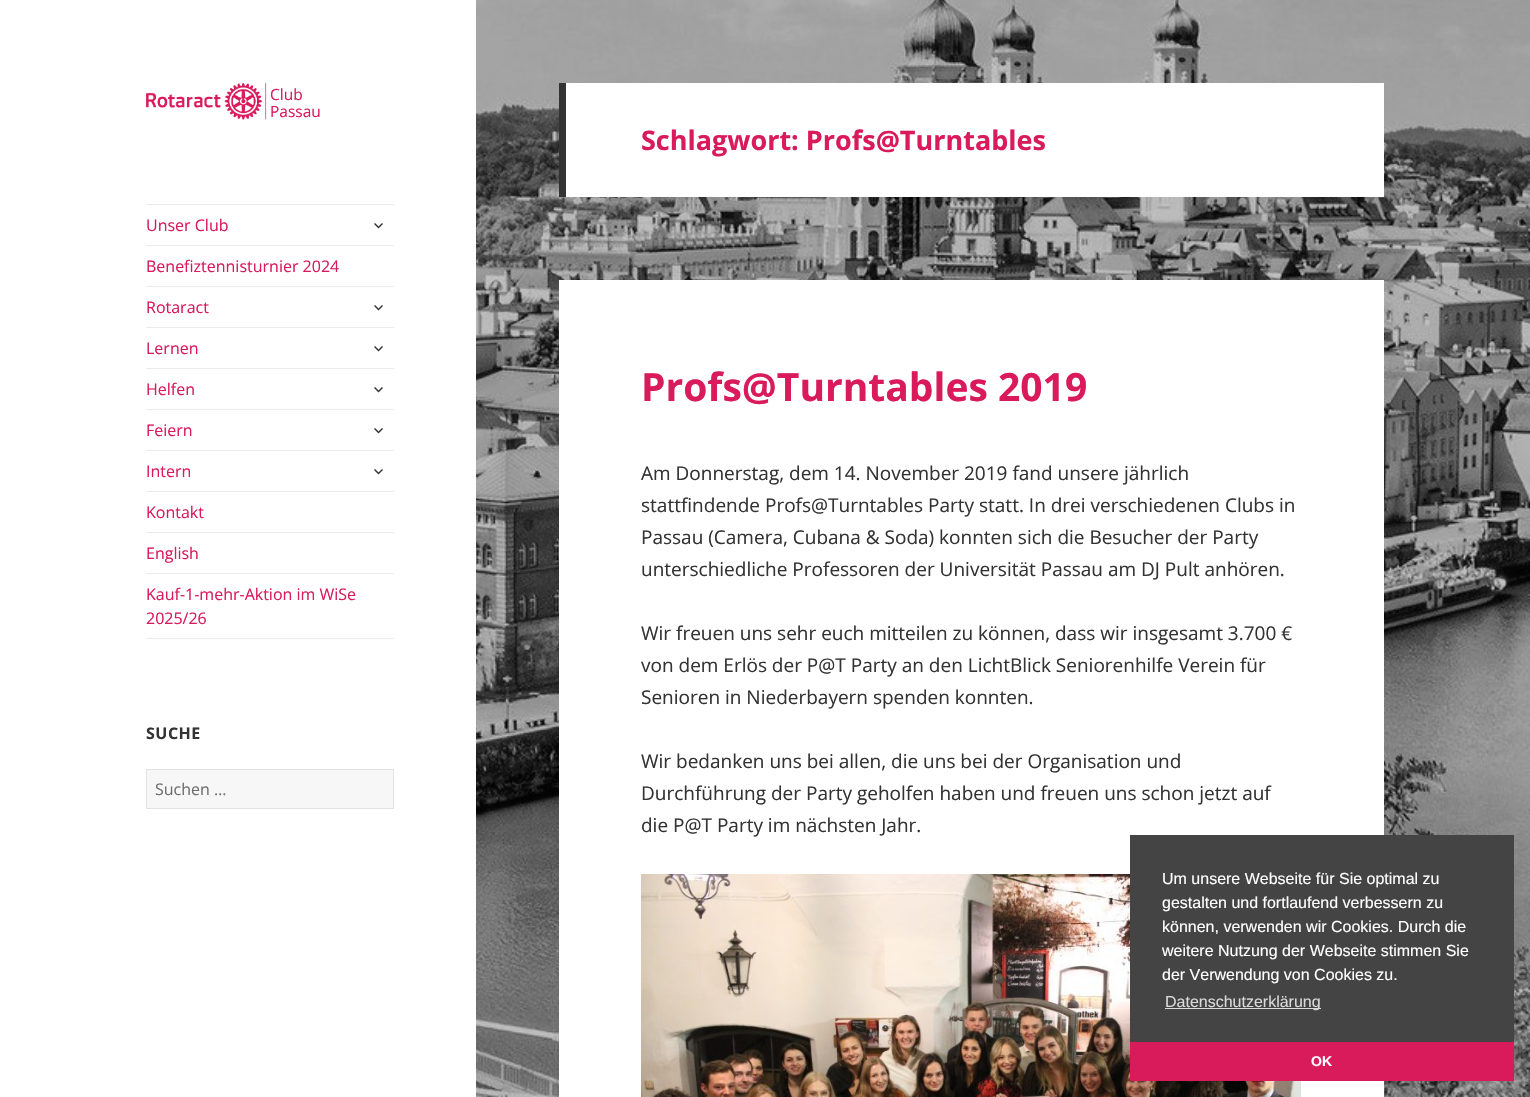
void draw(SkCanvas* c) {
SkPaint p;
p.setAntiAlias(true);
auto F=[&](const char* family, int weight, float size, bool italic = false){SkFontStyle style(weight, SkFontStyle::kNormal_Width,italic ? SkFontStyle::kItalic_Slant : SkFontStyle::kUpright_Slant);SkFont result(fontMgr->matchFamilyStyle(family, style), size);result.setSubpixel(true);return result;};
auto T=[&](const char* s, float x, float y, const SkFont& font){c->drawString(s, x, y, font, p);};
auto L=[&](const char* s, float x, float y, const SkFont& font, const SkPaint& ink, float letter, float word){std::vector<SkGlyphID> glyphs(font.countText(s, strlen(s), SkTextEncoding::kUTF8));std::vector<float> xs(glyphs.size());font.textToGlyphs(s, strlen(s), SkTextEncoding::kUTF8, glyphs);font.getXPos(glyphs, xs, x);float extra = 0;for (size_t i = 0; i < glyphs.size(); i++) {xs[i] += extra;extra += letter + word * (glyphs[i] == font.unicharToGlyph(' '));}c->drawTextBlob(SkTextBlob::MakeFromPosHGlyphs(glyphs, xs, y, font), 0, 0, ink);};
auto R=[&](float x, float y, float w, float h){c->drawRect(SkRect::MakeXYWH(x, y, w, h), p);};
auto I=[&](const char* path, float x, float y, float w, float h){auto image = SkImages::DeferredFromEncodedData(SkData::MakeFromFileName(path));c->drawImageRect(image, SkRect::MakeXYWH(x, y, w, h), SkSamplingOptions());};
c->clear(0xffffffff);
I("1.png",476,0,1054,1097);
I("2.png",146,82,121,38);
auto f1 = F("Open Sans",400,15.5);
p.setColor(0xffd91b5c);
T("Club",270,100,f1);
T("Passau",270,117,f1);
p.setColor(0xffebebeb);
R(146,204,248,1);
R(146,638,248,1);
auto f2 = F("Open Sans",400,16);
p.setColor(0xffd91b5c);
T("Unser Club",146,231,f2);
I("3.png",374,223,9,6);
p.setColor(0xffebebeb);
R(146,245,248,1);
p.setColor(0xffd91b5c);
T("Benefiztennisturnier 2024",146,272,f2);
p.setColor(0xffebebeb);
R(146,286,248,1);
p.setColor(0xffd91b5c);
T("Rotaract",146,313,f2);
I("3.png",374,305,9,6);
p.setColor(0xffebebeb);
R(146,327,248,1);
p.setColor(0xffd91b5c);
T("Lernen",146,354,f2);
I("3.png",374,346,9,6);
p.setColor(0xffebebeb);
R(146,368,248,1);
p.setColor(0xffd91b5c);
T("Helfen",146,395,f2);
I("3.png",374,387,9,6);
p.setColor(0xffebebeb);
R(146,409,248,1);
p.setColor(0xffd91b5c);
T("Feiern",146,436,f2);
I("3.png",374,428,9,6);
p.setColor(0xffebebeb);
R(146,450,248,1);
p.setColor(0xffd91b5c);
T("Intern",146,477,f2);
I("3.png",374,469,9,6);
p.setColor(0xffebebeb);
R(146,491,248,1);
p.setColor(0xffd91b5c);
T("Kontakt",146,518,f2);
p.setColor(0xffebebeb);
R(146,532,248,1);
p.setColor(0xffd91b5c);
T("English",146,559,f2);
p.setColor(0xffebebeb);
R(146,573,248,1);
p.setColor(0xffd91b5c);
T("Kauf-1-mehr-Aktion im WiSe",146,600,f2);
T("2025/26",146,624,f2);
auto f3 = F("Open Sans",700,16);
p.setColor(0xff333333);
L("SUCHE",146,739,f3,p,.5,0);
p.setColor(0xfff7f7f7);
c->drawRect(SkRect::MakeXYWH(146.5,769.5,247,39),p);
p.setStroke(true);
p.setStrokeWidth(1);
p.setColor(0xffe3e3e3);
c->drawRect(SkRect::MakeXYWH(146.5,769.5,247,39),p);
p.setStroke(false);
p.setColor(0xff6e6e6e);
T("Suchen …",155,795,f2);
p.setColor(0xffffffff);
R(566,83,818,114);
p.setColor(0xff333333);
R(559,83,7,114);
auto f4 = F("Open Sans",700,27);
p.setColor(0xffd91b5c);
T("Schlagwort: Profs@Turntables",641,150,f4);
p.setColor(0xffffffff);
R(559,280,825,817);
auto f5 = F("Open Sans",700,39);
p.setColor(0xffd91b5c);
T("Profs@Turntables 2019",641,401,f5);
auto f6 = F("Open Sans",400,19);
p.setColor(0xff333333);
T("Am Donnerstag, dem 14. November 2019 fand unsere jährlich",641,480,f6);
T("stattfindende Profs@Turntables Party statt. In drei verschiedenen Clubs in",641,512,f6);
T("Passau (Camera, Cubana & Soda) konnten sich die Besucher der Party",641,544,f6);
T("unterschiedliche Professoren der Universität Passau am DJ Pult anhören.",641,576,f6);
T("Wir freuen uns sehr euch mitteilen zu können, dass wir insgesamt 3.700 €",641,640,f6);
T("von dem Erlös der P@T Party an den LichtBlick Seniorenhilfe Verein für",641,672,f6);
T("Senioren in Niederbayern spenden konnten.",641,704,f6);
T("Wir bedanken uns bei allen, die uns bei der Organisation und",641,768,f6);
T("Durchführung der Party geholfen haben und freuen uns schon jetzt auf",641,800,f6);
T("die P@T Party im nächsten Jahr.",641,832,f6);
I("4.png",641,874,660,223);
p.setColor(0xff444444);
R(1130,835,384,207);
auto f7 = F("Liberation Sans",400,16);
p.setColor(0xffffffff);
T("Um unsere Webseite für Sie optimal zu",1162,884,f7);
T("gestalten und fortlaufend verbessern zu",1162,908,f7);
T("können, verwenden wir Cookies. Durch die",1162,932,f7);
T("weitere Nutzung der Webseite stimmen Sie",1162,956,f7);
T("der Verwendung von Cookies zu.",1162,980,f7);
p.setColor(0xffdadada);
R(1165,1008,156,1);
T("Datenschutzerklärung",1165,1007,f7);
p.setColor(0xffd91b5c);
R(1130,1042,384,39);
auto f8 = F("Liberation Sans",700,14);
p.setColor(0xffffffff);
T("OK",1311,1066,f8);
}
